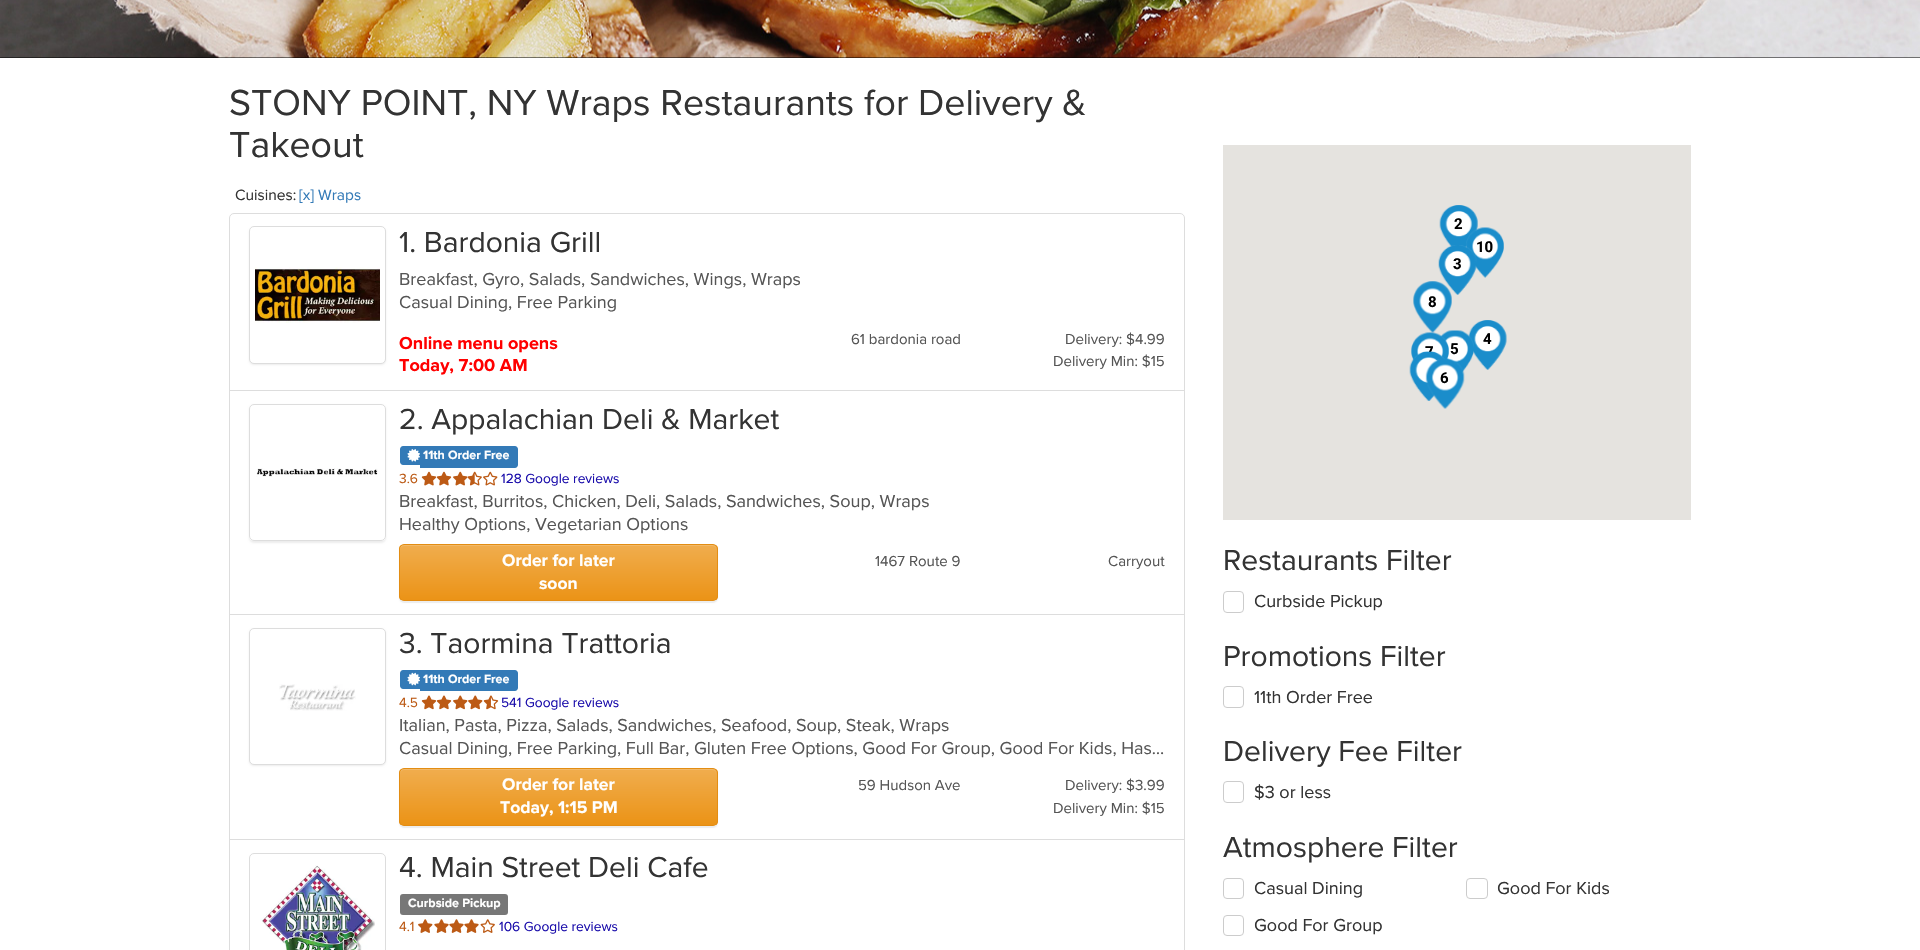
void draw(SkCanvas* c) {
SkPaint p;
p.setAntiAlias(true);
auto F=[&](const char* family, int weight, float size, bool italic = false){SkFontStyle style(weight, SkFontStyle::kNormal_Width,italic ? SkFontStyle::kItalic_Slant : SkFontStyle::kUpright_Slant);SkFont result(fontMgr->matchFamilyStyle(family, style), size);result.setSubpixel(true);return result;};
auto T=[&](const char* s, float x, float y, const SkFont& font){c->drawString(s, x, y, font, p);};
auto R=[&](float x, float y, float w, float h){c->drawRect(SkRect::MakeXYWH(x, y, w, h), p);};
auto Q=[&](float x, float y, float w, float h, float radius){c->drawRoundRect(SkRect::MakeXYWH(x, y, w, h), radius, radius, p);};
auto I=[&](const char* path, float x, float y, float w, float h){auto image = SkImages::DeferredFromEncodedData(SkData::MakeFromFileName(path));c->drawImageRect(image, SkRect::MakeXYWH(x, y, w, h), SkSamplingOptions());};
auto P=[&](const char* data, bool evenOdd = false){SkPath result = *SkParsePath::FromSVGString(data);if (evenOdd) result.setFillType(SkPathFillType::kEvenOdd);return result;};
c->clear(0xffffffff);
p.setColor(0xff000000);
R(0,57,1920,1);
I("1.png",0,0,1920,58);
auto f1 = F("Proxima Nova",400,37.5);
p.setColor(0xff333333);
T("STONY POINT, NY Wraps Restaurants for Delivery &",229,115,f1);
T("Takeout",229,157,f1);
auto f2 = F("Proxima Nova",400,15.5);
T("Cuisines:",235,200,f2);
p.setColor(0xff337ab7);
T("[x] Wraps",299,200,f2);
p.setStroke(true);
p.setStrokeWidth(1);
p.setColor(0xffdddddd);
c->drawPath(P("M234 213.5h946c2.5 0 4.5 2 4.5 4.5v172.5h-955v-172.5c0-2.5 2-4.5 4.5-4.5z"),p);
p.setStroke(false);
p.setColor(0x12000000);
p.setMaskFilter(SkMaskFilter::MakeBlur(kNormal_SkBlurStyle, 1));
c->drawRoundRect(SkRect::MakeXYWH(249,228,137,137),5,5,p);
p.setMaskFilter(nullptr);
p.setColor(0xffffffff);
c->drawRoundRect(SkRect::MakeXYWH(249.5,226.5,136,137),4.5,4.5,p);
p.setStroke(true);
p.setColor(0xffdddddd);
c->drawRoundRect(SkRect::MakeXYWH(249.5,226.5,136,137),4.5,4.5,p);
I("2.png",255,267,125,56);
auto f3 = F("Proxima Nova",400,30);
p.setStroke(false);
p.setColor(0xff333333);
T("1. Bardonia Grill",399,252,f3);
auto f4 = F("Proxima Nova",400,18);
p.setColor(0xff555555);
T("Breakfast, Gyro, Salads, Sandwiches, Wings, Wraps",399,285,f4);
T("Casual Dining, Free Parking",399,308,f4);
auto f5 = F("Proxima Nova",700,18);
p.setColor(0xffff0000);
T("Online menu opens",399,349,f5);
T("Today, 7:00 AM",399,371,f5);
auto f6 = F("Proxima Nova",400,15);
p.setColor(0xff555555);
T("61 bardonia road",851,344,f6);
T("Delivery: $4.99",1065,344,f6);
T("Delivery Min: $15",1053,366,f6);
p.setStroke(true);
p.setColor(0xffdddddd);
c->drawRect(SkRect::MakeXYWH(229.5,390.5,955,224),p);
c->save();
c->clipPath(P("M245 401h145v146h-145zm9 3h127c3 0 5 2 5 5v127c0 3-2 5-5 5h-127c-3 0-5-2-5-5v-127c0-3 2-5 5-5z",true),true);
p.setStroke(false);
p.setColor(0x12000000);
p.setMaskFilter(SkMaskFilter::MakeBlur(kNormal_SkBlurStyle, 1));
c->drawRoundRect(SkRect::MakeXYWH(249,405,137,138),5,5,p);
p.setMaskFilter(nullptr);
c->restore();
p.setStroke(true);
p.setColor(0xffdddddd);
c->drawRoundRect(SkRect::MakeXYWH(249.5,404.5,136,136),4.5,4.5,p);
I("3.png",256,468,122,9);
p.setStroke(false);
p.setColor(0xff333333);
T("2. Appalachian Deli & Market",399,429,f3);
p.setColor(0xff337ab7);
c->drawPath(P("M403 446h17v19h-17c-1.5 0-3-1.5-3-3v-13c0-1.5 1.5-3 3-3z"),p);
c->drawPath(P("M420 446h95c1.5 0 3 1.5 3 3v16c0 1.5-1.5 3-3 3h-95z"),p);
I("4.png",407,449,13,13);
auto f7 = F("Proxima Nova",700,12.5);
p.setColor(0xffffffff);
T("11th Order Free",423,459,f7);
auto f8 = F("Proxima Nova",400,13.75);
p.setColor(0xffbc5a15);
T("3.6",399,483,f8);
I("5.png",421,471,16,15);
I("6.png",436,471,16,15);
I("7.png",453,471,15,15);
I("8.png",467,471,15,15);
I("9.png",483,471,15,15);
p.setColor(0xff1a0dab);
T("128 Google reviews",501,483,f8);
p.setColor(0xff555555);
T("Breakfast, Burritos, Chicken, Deli, Salads, Sandwiches, Soup, Wraps",399,507,f4);
T("Healthy Options, Vegetarian Options",399,530,f4);
p.setColor(0x12000000);
p.setMaskFilter(SkMaskFilter::MakeBlur(kNormal_SkBlurStyle, .5));
c->drawRoundRect(SkRect::MakeXYWH(399,545,319,58),5,5,p);
p.setMaskFilter(nullptr);
c->save();
c->clipPath(P("M404 544h309c3 0 5 2 5 5v47c0 3-2 5-5 5h-309c-3 0-5-2-5-5v-47c0-3 2-5 5-5z"),true);
{
const SkColor colors[] = {0xfff0ad4e,0xffeb9316};
const float stops[] = {0,1};
const SkPoint ends[] = {{558,545}, {558,600}};
p.setShader(SkGradientShader::MakeLinear(ends, colors, stops, 2, SkTileMode::kClamp));
p.setAlpha(255);
}
R(399,545,319,55);
c->restore();
p.setShader(nullptr);
p.setColor(0xfff2b968);
c->drawPath(P("M404 546h308c3 0 4 2 4 4v-1c0-2-2-4-4-4h-308c-2 0-4 2-4 4v1c0-2 2-4 4-4z"),p);
p.setStroke(true);
p.setColor(0xffe38d13);
c->drawRoundRect(SkRect::MakeXYWH(399.5,544.5,318,56),4.5,4.5,p);
auto f9 = F("Proxima Nova",700,17.5);
p.setStroke(false);
p.setColor(0xffffffff);
T("Order for later",502,566,f9);
T("soon",539,589,f9);
p.setColor(0xff555555);
T("1467 Route 9",875,566,f6);
T("Carryout",1108,566,f6);
p.setStroke(true);
p.setColor(0xffdddddd);
c->drawRect(SkRect::MakeXYWH(229.5,614.5,955,225),p);
p.setStroke(false);
p.setColor(0x12000000);
p.setMaskFilter(SkMaskFilter::MakeBlur(kNormal_SkBlurStyle, 1));
c->drawRoundRect(SkRect::MakeXYWH(249,629,137,137),5,5,p);
p.setMaskFilter(nullptr);
p.setColor(0xffffffff);
c->drawRoundRect(SkRect::MakeXYWH(249.5,628.5,136,136),4.5,4.5,p);
p.setStroke(true);
p.setColor(0xffdddddd);
c->drawRoundRect(SkRect::MakeXYWH(249.5,628.5,136,136),4.5,4.5,p);
I("10.png",279,684,77,27);
p.setStroke(false);
p.setColor(0xff333333);
T("3. Taormina Trattoria",399,653,f3);
p.setColor(0xff337ab7);
c->drawPath(P("M403 670h17v19h-17c-1.5 0-3-1.5-3-3v-13c0-1.5 1.5-3 3-3z"),p);
c->drawPath(P("M420 670h95c1.5 0 3 1.5 3 3v15c0 1.5-1.5 3-3 3h-95z"),p);
I("11.png",407,672,13,14);
p.setColor(0xffffffff);
T("11th Order Free",423,683,f7);
p.setColor(0xffbc5a15);
T("4.5",399,707,f8);
I("12.png",421,695,16,15);
I("13.png",436,695,16,15);
I("14.png",453,695,15,15);
I("14.png",468,695,15,15);
I("15.png",483,695,16,15);
p.setColor(0xff1a0dab);
T("541 Google reviews",501,707,f8);
p.setColor(0xff555555);
T("Italian, Pasta, Pizza, Salads, Sandwiches, Seafood, Soup, Steak, Wraps",399,731,f4);
T("Casual Dining, Free Parking, Full Bar, Gluten Free Options, Good For Group, Good For Kids, Has…",399,754,f4);
p.setColor(0x12000000);
p.setMaskFilter(SkMaskFilter::MakeBlur(kNormal_SkBlurStyle, .5));
c->drawRoundRect(SkRect::MakeXYWH(399,769,319,59),5,5,p);
p.setMaskFilter(nullptr);
c->save();
c->clipPath(P("M404 768h309c3 0 5 2 5 5v48c0 3-2 5-5 5h-309c-3 0-5-2-5-5v-48c0-3 2-5 5-5z"),true);
{
const SkColor colors[] = {0xfff0ad4e,0xffeb9316};
const float stops[] = {0,1};
const SkPoint ends[] = {{558,769}, {558,825}};
p.setShader(SkGradientShader::MakeLinear(ends, colors, stops, 2, SkTileMode::kClamp));
p.setAlpha(255);
}
R(399,769,319,56);
c->restore();
p.setShader(nullptr);
p.setColor(0xfff2b969);
c->drawPath(P("M404 770h308c3 0 4 2 4 4v-1c0-2-2-4-4-4h-308c-2 0-4 2-4 4v1c0-2 2-4 4-4z"),p);
p.setStroke(true);
p.setColor(0xffe38d13);
c->drawRoundRect(SkRect::MakeXYWH(399.5,768.5,318,57),4.5,4.5,p);
p.setStroke(false);
p.setColor(0xffffffff);
T("Order for later",502,790,f9);
T("Today, 1:15 PM",500,813,f9);
p.setColor(0xff555555);
T("59 Hudson Ave",858,790,f6);
T("Delivery: $3.99",1065,790,f6);
T("Delivery Min: $15",1053,813,f6);
p.setStroke(true);
p.setColor(0xffdddddd);
c->drawRect(SkRect::MakeXYWH(229.5,839.5,955,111),p);
c->drawRoundRect(SkRect::MakeXYWH(249.5,853.5,136,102),4.5,4.5,p);
I("16.png",260,865,115,85);
p.setStroke(false);
p.setColor(0xff333333);
T("4. Main Street Deli Cafe",399,877,f3);
p.setColor(0xff777777);
Q(400,894,108,21,3);
p.setColor(0xffffffff);
T("Curbside Pickup",408,907,f7);
p.setColor(0xffbc5a15);
T("4.1",399,931,f8);
I("17.png",418,919,15,14);
I("18.png",434,919,15,14);
I("18.png",449,919,15,14);
I("18.png",464,919,15,14);
I("19.png",480,919,15,14);
p.setColor(0xff1a0dab);
T("106 Google reviews",499,931,f8);
p.setColor(0xffe5e3df);
R(1223,145,468,375);
I("20.png",1439,205,39,43);
auto f10 = F("Roboto",700,15);
p.setColor(0xff000000);
T("2",1454,229,f10);
I("21.png",1466,227,38,51);
T("10",1476,252,f10);
I("22.png",1438,245,39,50);
T("3",1453,269,f10);
I("23.png",1413,281,39,51);
I("24.png",1413,283,39,50);
T("8",1428,307,f10);
I("27.png",1468,320,39,50);
I("26.png",1439,330,35,43);
I("25.png",1411,332,38,29);
T("4",1483,344,f10);
T("7",1425,357,f10);
T("5",1450,354,f10);
I("28.png",1409,351,37,50);
I("29.png",1425,358,40,51);
T("6",1440,383,f10);
p.setColor(0xff333333);
T("Restaurants Filter",1223,570,f3);
p.setStroke(true);
p.setColor(0xffcccccc);
c->drawRoundRect(SkRect::MakeXYWH(1223.5,591.5,20,21),3.5,3.5,p);
p.setStroke(false);
p.setColor(0xff333333);
T("Curbside Pickup",1254,607,f4);
T("Promotions Filter",1223,666,f3);
p.setStroke(true);
p.setColor(0xffcccccc);
c->drawRoundRect(SkRect::MakeXYWH(1223.5,686.5,20,21),3.5,3.5,p);
p.setStroke(false);
p.setColor(0xff333333);
T("11th Order Free",1254,703,f4);
T("Delivery Fee Filter",1223,761,f3);
p.setStroke(true);
p.setColor(0xffcccccc);
c->drawRoundRect(SkRect::MakeXYWH(1223.5,781.5,20,21),3.5,3.5,p);
p.setStroke(false);
p.setColor(0xff333333);
T("$3 or less",1254,798,f4);
T("Atmosphere Filter",1223,857,f3);
p.setStroke(true);
p.setColor(0xffcccccc);
c->drawRoundRect(SkRect::MakeXYWH(1223.5,878.5,20,20),3.5,3.5,p);
p.setStroke(false);
p.setColor(0xff333333);
T("Casual Dining",1254,894,f4);
p.setStroke(true);
p.setColor(0xffcccccc);
c->drawRoundRect(SkRect::MakeXYWH(1466.5,878.5,21,20),3.5,3.5,p);
p.setStroke(false);
p.setColor(0xff333333);
T("Good For Kids",1497,894,f4);
p.setStroke(true);
p.setColor(0xffcccccc);
c->drawRoundRect(SkRect::MakeXYWH(1223.5,915.5,20,20),3.5,3.5,p);
p.setStroke(false);
p.setColor(0xff333333);
T("Good For Group",1254,931,f4);
}
